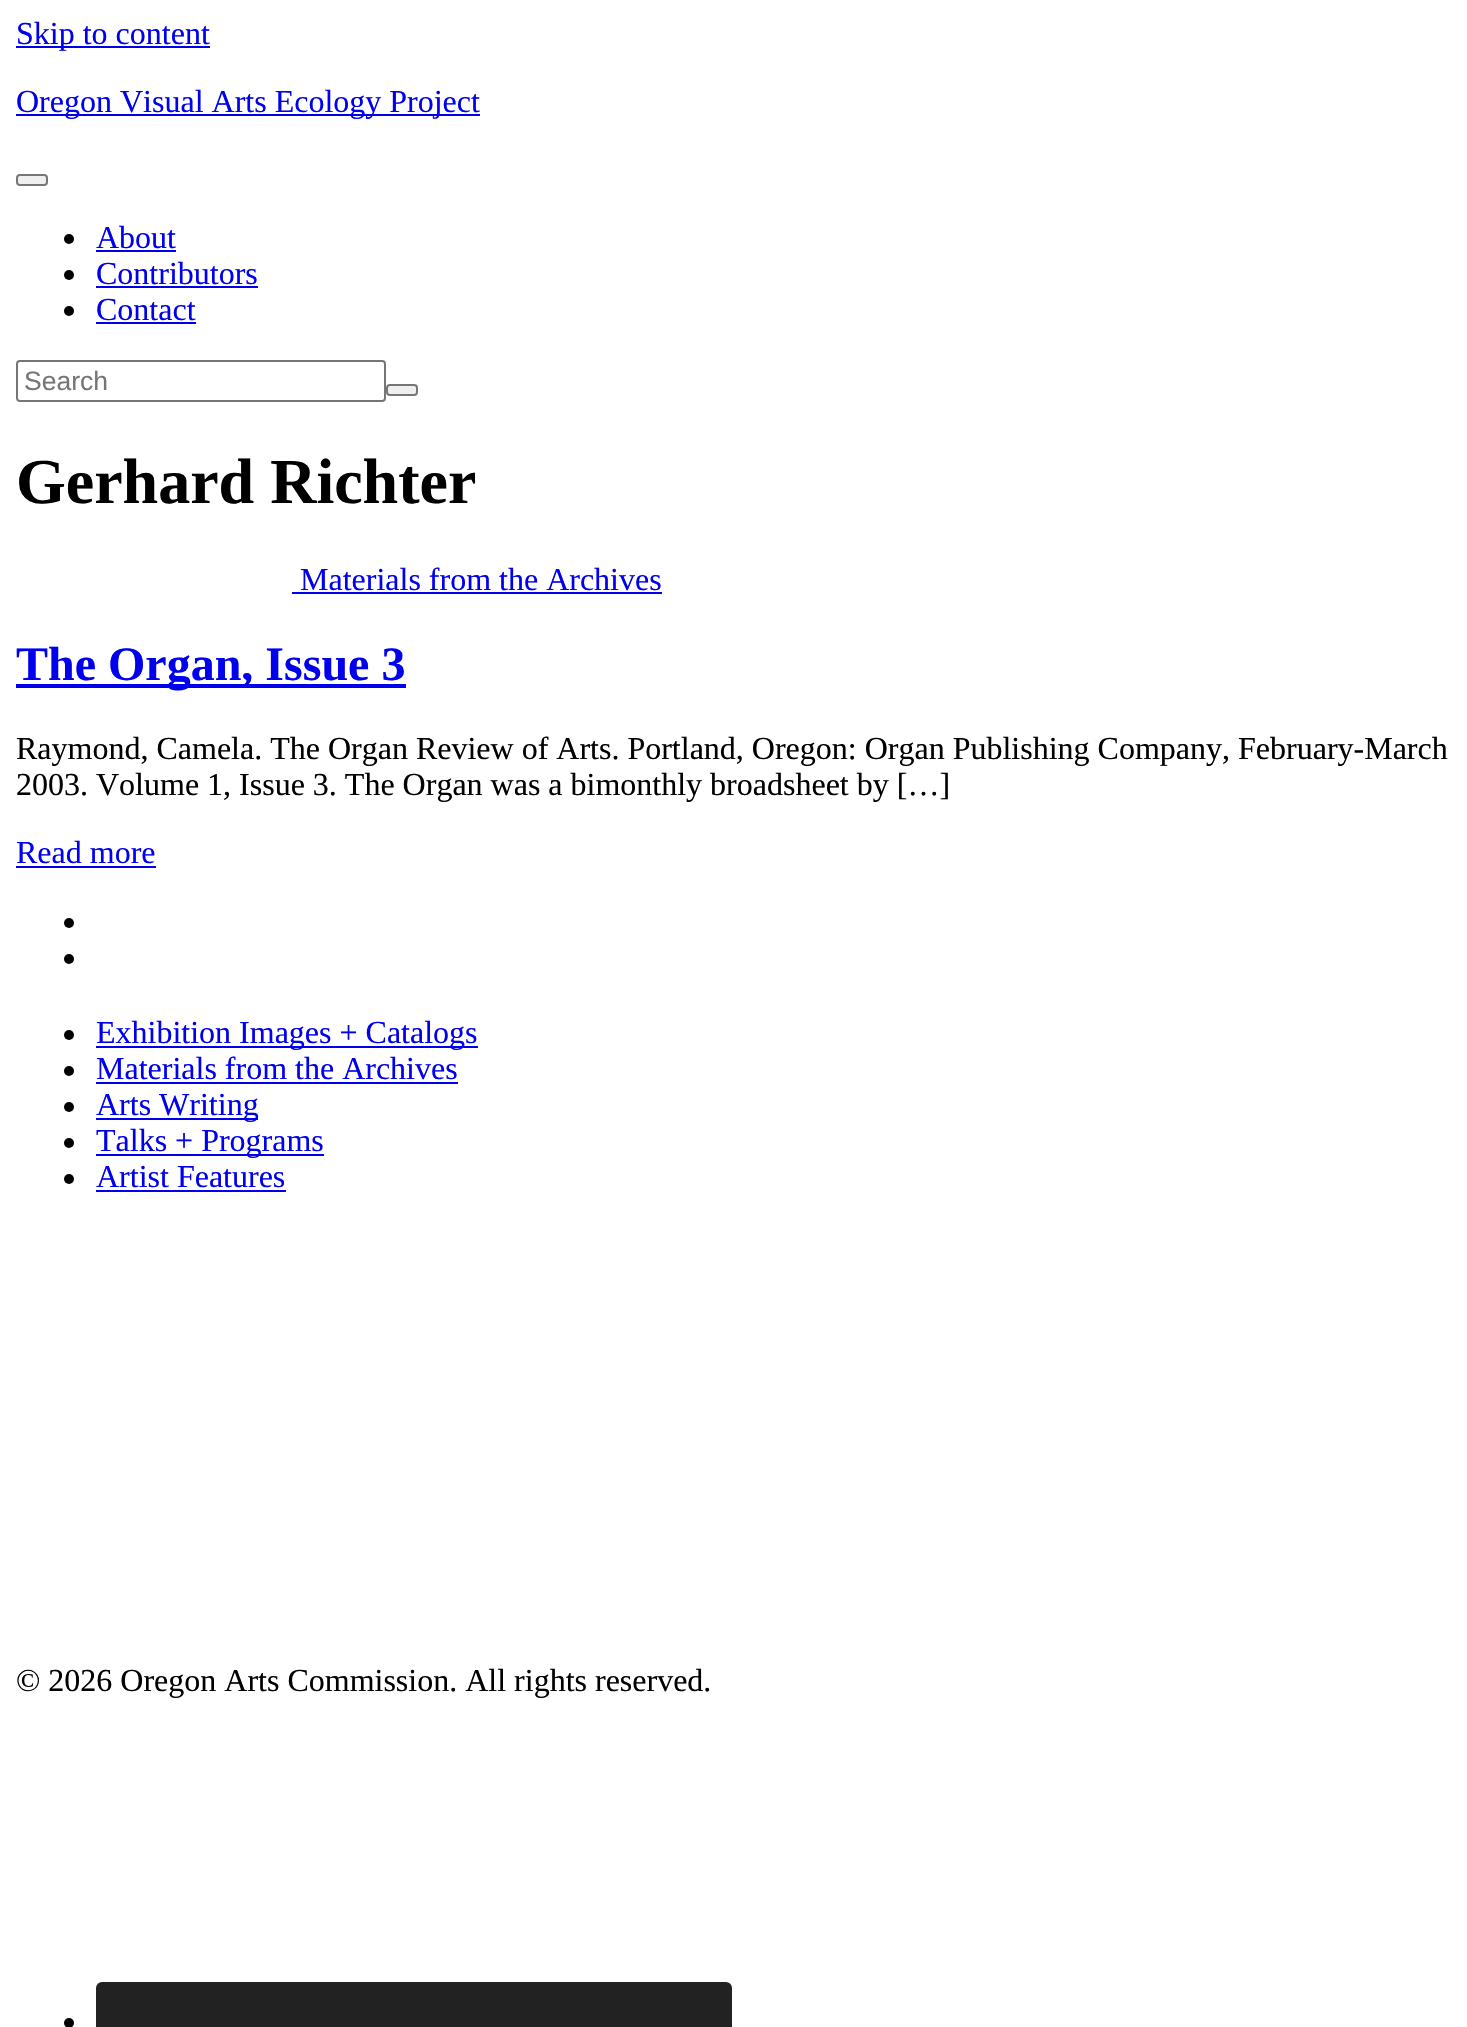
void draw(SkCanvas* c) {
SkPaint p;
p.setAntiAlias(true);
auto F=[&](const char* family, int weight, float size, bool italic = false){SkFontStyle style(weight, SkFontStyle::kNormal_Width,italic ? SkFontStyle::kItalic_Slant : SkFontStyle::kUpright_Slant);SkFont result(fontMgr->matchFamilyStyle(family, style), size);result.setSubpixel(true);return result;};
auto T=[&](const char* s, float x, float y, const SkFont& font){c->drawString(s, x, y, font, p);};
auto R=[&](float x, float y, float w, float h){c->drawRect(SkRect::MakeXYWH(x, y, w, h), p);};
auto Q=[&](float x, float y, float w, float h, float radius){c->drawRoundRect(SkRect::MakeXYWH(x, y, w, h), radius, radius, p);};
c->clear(0xffffffff);
p.setColor(0xff0000ee);
R(16,46,194,2);
auto f1 = F("Liberation Serif",400,32);
T("Skip to content",16,44,f1);
R(16,114,464,2);
T("Oregon Visual Arts Ecology Project",16,112,f1);
p.setColor(0xffefefef);
c->drawRoundRect(SkRect::MakeXYWH(17,175,30,10),3,3,p);
p.setStroke(true);
p.setStrokeWidth(2);
p.setColor(0xff767676);
c->drawRoundRect(SkRect::MakeXYWH(17,175,30,10),3,3,p);
p.setStroke(false);
p.setColor(0xff000000);
c->drawCircle(69,239,5,p);
p.setColor(0xff0000ee);
T("About",96,248,f1);
R(96,250,80,2);
p.setColor(0xff000000);
c->drawCircle(69,275,5,p);
p.setColor(0xff0000ee);
T("Contributors",96,284,f1);
R(96,286,162,2);
p.setColor(0xff000000);
c->drawCircle(69,311,5,p);
p.setColor(0xff0000ee);
T("Contact",96,320,f1);
R(96,322,100,2);
p.setStroke(true);
p.setColor(0xff767676);
c->drawRoundRect(SkRect::MakeXYWH(17,361,368,40),3,3,p);
auto f2 = F("Liberation Sans",400,26.5);
p.setStroke(false);
p.setColor(0xff757575);
T("Search",24,390,f2);
p.setColor(0xffefefef);
c->drawRoundRect(SkRect::MakeXYWH(387,385,30,10),3,3,p);
p.setStroke(true);
p.setColor(0xff767676);
c->drawRoundRect(SkRect::MakeXYWH(387,385,30,10),3,3,p);
auto f3 = F("Liberation Serif",700,64);
p.setStroke(false);
p.setColor(0xff000000);
T("Gerhard Richter",16,503,f3);
p.setColor(0xff0000ee);
T("Materials from the Archives",300,590,f1);
R(292,592,370,2);
R(16,684,390,4);
auto f4 = F("Liberation Serif",700,48);
T("The Organ, Issue 3",16,680,f4);
p.setColor(0xff000000);
T("Raymond, Camela. The Organ Review of Arts. Portland, Oregon: Organ Publishing Company, February-March",16,759,f1);
T("2003. Volume 1, Issue 3. The Organ was a bimonthly broadsheet by […]",16,795,f1);
p.setColor(0xff0000ee);
T("Read more",16,863,f1);
R(16,866,140,2);
p.setColor(0xff000000);
c->drawCircle(69,923,5,p);
c->drawCircle(69,959,5,p);
c->drawCircle(69,1035,5,p);
p.setColor(0xff0000ee);
R(96,1046,382,2);
T("Exhibition Images + Catalogs",96,1043,f1);
p.setColor(0xff000000);
c->drawCircle(69,1071,5,p);
p.setColor(0xff0000ee);
T("Materials from the Archives",96,1079,f1);
R(96,1082,362,2);
p.setColor(0xff000000);
c->drawCircle(69,1107,5,p);
p.setColor(0xff0000ee);
R(96,1118,162,2);
T("Arts Writing",96,1115,f1);
p.setColor(0xff000000);
c->drawCircle(69,1143,5,p);
p.setColor(0xff0000ee);
R(96,1154,228,2);
T("Talks + Programs",96,1151,f1);
p.setColor(0xff000000);
c->drawCircle(69,1179,5,p);
p.setColor(0xff0000ee);
T("Artist Features",96,1187,f1);
R(96,1190,190,2);
p.setColor(0xff000000);
T("© 2026 Oregon Arts Commission. All rights reserved.",16,1691,f1);
c->drawCircle(69,2023,5,p);
p.setColor(0xff222222);
Q(96,1982,636,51,6);
}
